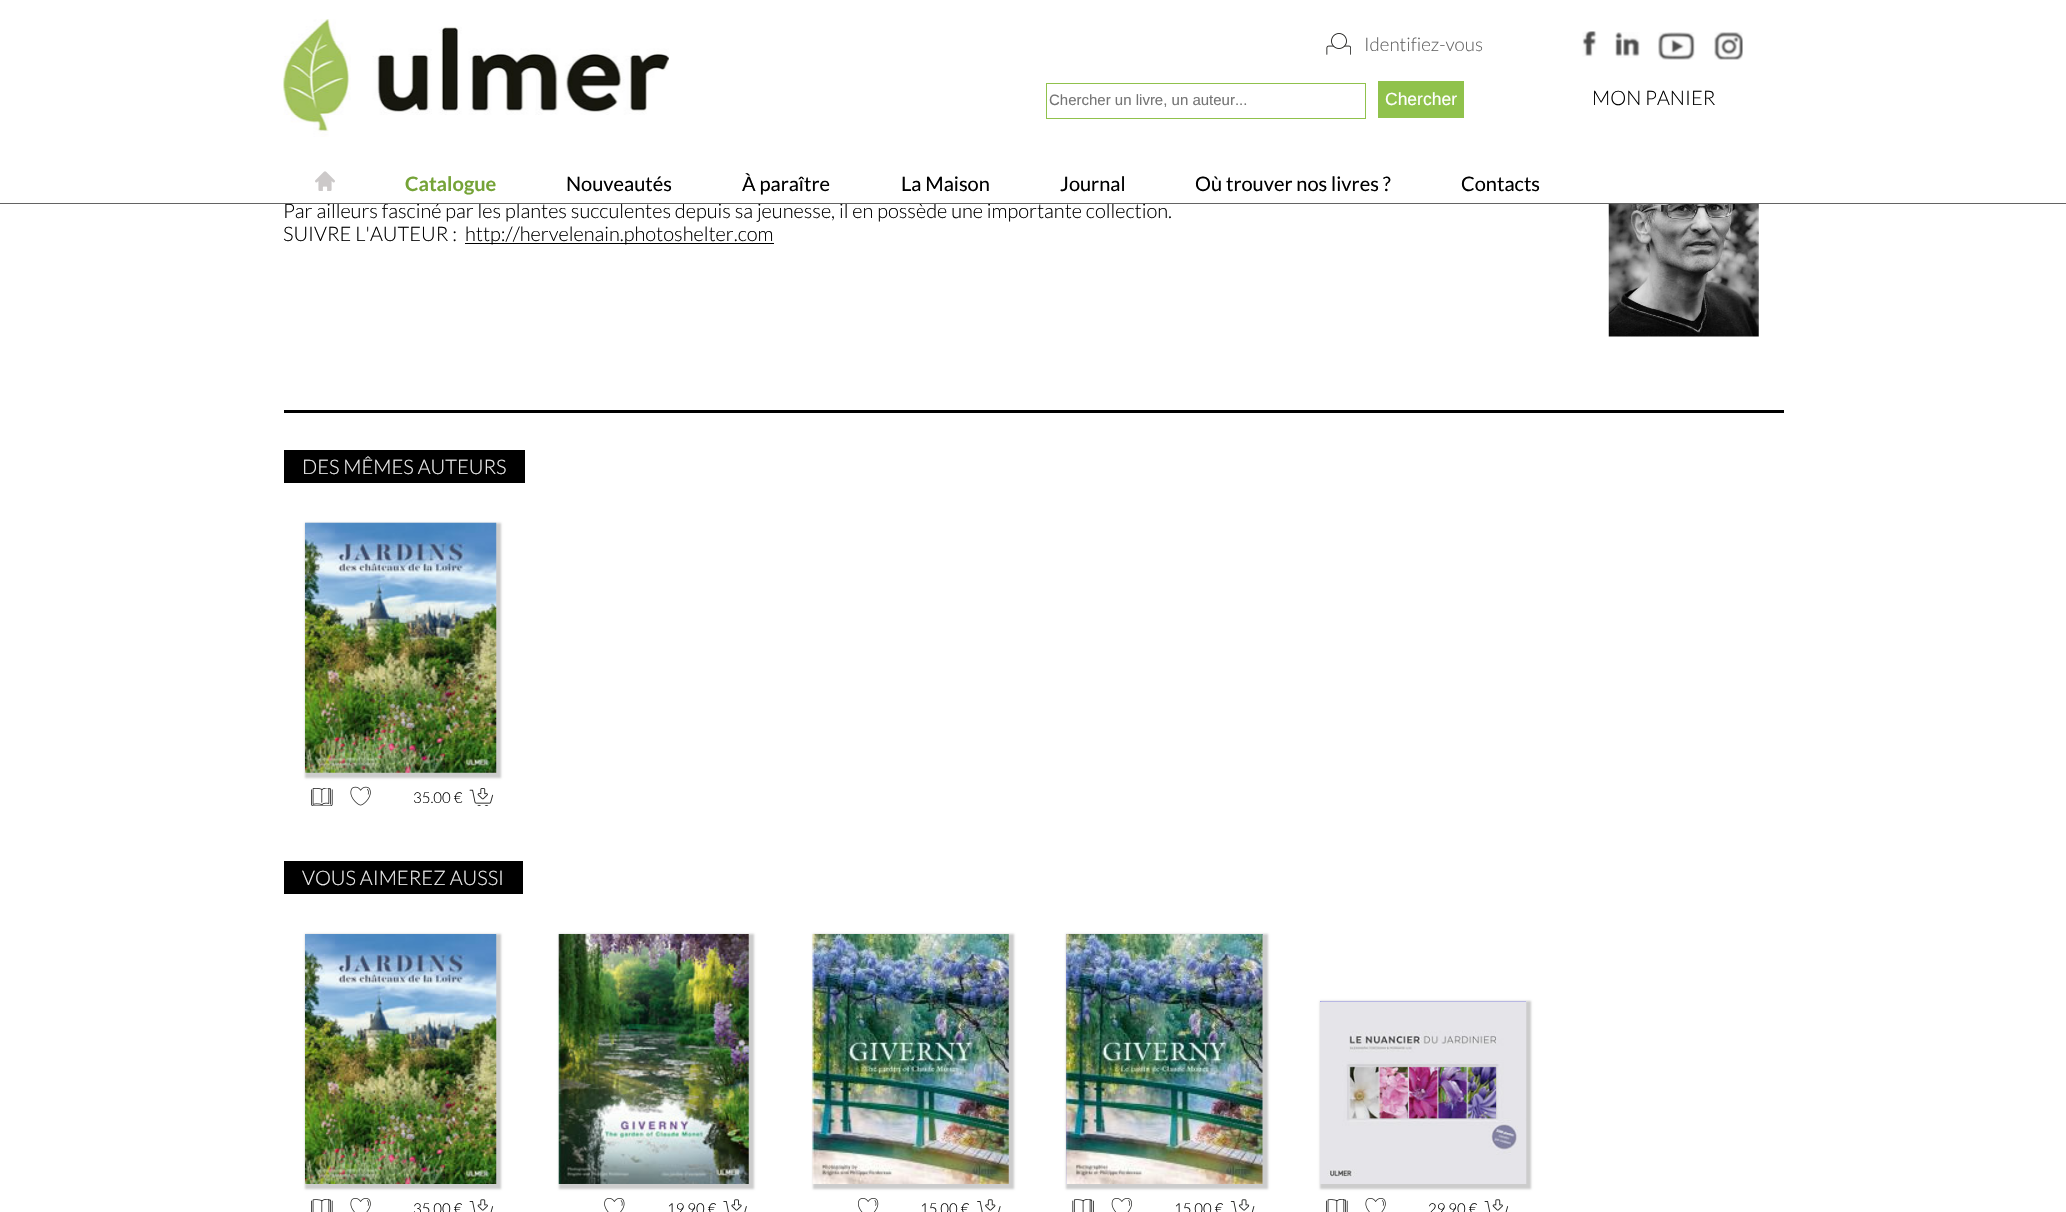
void draw(SkCanvas* c) {
SkPaint p;
p.setAntiAlias(true);
auto F=[&](const char* family, int weight, float size, bool italic = false){SkFontStyle style(weight, SkFontStyle::kNormal_Width,italic ? SkFontStyle::kItalic_Slant : SkFontStyle::kUpright_Slant);SkFont result(fontMgr->matchFamilyStyle(family, style), size);result.setSubpixel(true);return result;};
auto T=[&](const char* s, float x, float y, const SkFont& font){c->drawString(s, x, y, font, p);};
auto R=[&](float x, float y, float w, float h){c->drawRect(SkRect::MakeXYWH(x, y, w, h), p);};
auto I=[&](const char* path, float x, float y, float w, float h){auto image = SkImages::DeferredFromEncodedData(SkData::MakeFromFileName(path));c->drawImageRect(image, SkRect::MakeXYWH(x, y, w, h), SkSamplingOptions());};
c->clear(0xffffffff);
auto f1 = F("Lato",300,20);
p.setColor(0xff000000);
T("Par ailleurs fasciné par les plantes succulentes depuis sa jeunesse, il en possède une importante collection.",283,218,f1);
p.setColor(0xff636363);
R(0,203,2066,1);
I("1.png",283,19,386,118);
I("2.png",1326,33,25,22);
auto f2 = F("Lato",300,18.75);
p.setColor(0xff646464);
T("Identifiez-vous",1364,51,f2);
I("3.png",1582,31,15,26);
I("4.png",1615,32,25,26);
I("5.png",1658,32,37,28);
I("6.png",1714,31,29,29);
p.setStroke(true);
p.setStrokeWidth(1);
p.setColor(0xff90c24c);
c->drawRect(SkRect::MakeXYWH(1046.5,83.5,319,35),p);
auto f3 = F("Liberation Sans",400,15);
p.setStroke(false);
p.setColor(0xff757575);
T("Chercher un livre, un auteur...",1049,105,f3);
p.setColor(0xff90c24c);
R(1378,81,86,37);
auto f4 = F("Liberation Sans",400,17.5);
p.setColor(0xffffffff);
T("Chercher",1385,105,f4);
p.setColor(0xff000000);
T("MON PANIER",1592,105,f1);
I("7.png",315,171,20,20);
auto f5 = F("Lato",700,20);
p.setColor(0xff75a337);
T("Catalogue",405,191,f5);
auto f6 = F("Lato",400,20);
p.setColor(0xff000000);
T("Nouveautés",566,191,f6);
T("À paraître",742,191,f6);
T("La Maison",901,191,f6);
T("Journal",1060,191,f6);
T("Où trouver nos livres ?",1195,191,f6);
T("Contacts",1461,191,f6);
I("8.png",1608,204,151,133);
T("SUIVRE L'AUTEUR :",283,241,f1);
R(465,243,309,1);
T("http://hervelenain.photoshelter.com",465,241,f1);
R(284,410,1500,3);
R(284,450,241,33);
p.setColor(0xffefefef);
T("DES MÊMES AUTEURS",302,474,f1);
p.setColor(0xffcccccc);
p.setMaskFilter(SkMaskFilter::MakeBlur(kNormal_SkBlurStyle, 1));
c->drawRect(SkRect::MakeXYWH(305,523,196,255),p);
p.setMaskFilter(nullptr);
I("9.png",305,522,192,251);
I("10.png",311,788,22,18);
I("11.png",350,786,21,20);
I("12.png",469,788,25,18);
auto f7 = F("Lato",300,15);
p.setColor(0xff000000);
T("35.00 €",413,803,f7);
R(284,861,239,33);
p.setColor(0xffefefef);
T("VOUS AIMEREZ AUSSI",302,885,f1);
p.setColor(0xffcccccc);
p.setMaskFilter(SkMaskFilter::MakeBlur(kNormal_SkBlurStyle, 1));
c->drawRect(SkRect::MakeXYWH(305,934,196,255),p);
p.setMaskFilter(nullptr);
I("13.png",305,934,192,250);
I("14.png",311,1199,22,13);
I("15.png",350,1198,21,14);
I("16.png",469,1199,25,13);
p.setColor(0xff000000);
T("35.00 €",413,1214,f7);
p.setColor(0xffcccccc);
p.setMaskFilter(SkMaskFilter::MakeBlur(kNormal_SkBlurStyle, 1));
c->drawRect(SkRect::MakeXYWH(559,934,195,255),p);
p.setMaskFilter(nullptr);
I("17.png",558,934,191,250);
I("18.png",604,1198,21,14);
I("19.png",723,1199,24,13);
p.setColor(0xff000000);
T("19.90 €",667,1214,f7);
p.setColor(0xffcccccc);
p.setMaskFilter(SkMaskFilter::MakeBlur(kNormal_SkBlurStyle, 1));
c->drawRect(SkRect::MakeXYWH(813,934,201,255),p);
p.setMaskFilter(nullptr);
I("20.png",812,934,197,250);
I("21.png",858,1198,21,14);
I("22.png",977,1199,24,13);
p.setColor(0xff000000);
T("15.00 €",920,1214,f7);
p.setColor(0xff0000ff);
R(1066,934,197,250);
p.setColor(0xffcccccc);
p.setMaskFilter(SkMaskFilter::MakeBlur(kNormal_SkBlurStyle, 1));
c->drawRect(SkRect::MakeXYWH(1066,934,202,255),p);
p.setMaskFilter(nullptr);
I("23.png",1066,934,197,250);
I("24.png",1072,1199,22,13);
I("25.png",1111,1198,21,14);
I("26.png",1230,1199,25,13);
p.setColor(0xff000000);
T("15.00 €",1174,1214,f7);
p.setColor(0xff0000ff);
R(1320,1001,206,1);
p.setColor(0xffcccccc);
p.setMaskFilter(SkMaskFilter::MakeBlur(kNormal_SkBlurStyle, 1));
c->drawRect(SkRect::MakeXYWH(1320,1001,211,188),p);
p.setMaskFilter(nullptr);
I("27.png",1320,1001,207,183);
I("14.png",1326,1199,22,13);
I("15.png",1365,1198,21,14);
I("16.png",1484,1199,25,13);
p.setColor(0xff000000);
T("29.90 €",1428,1214,f7);
}
